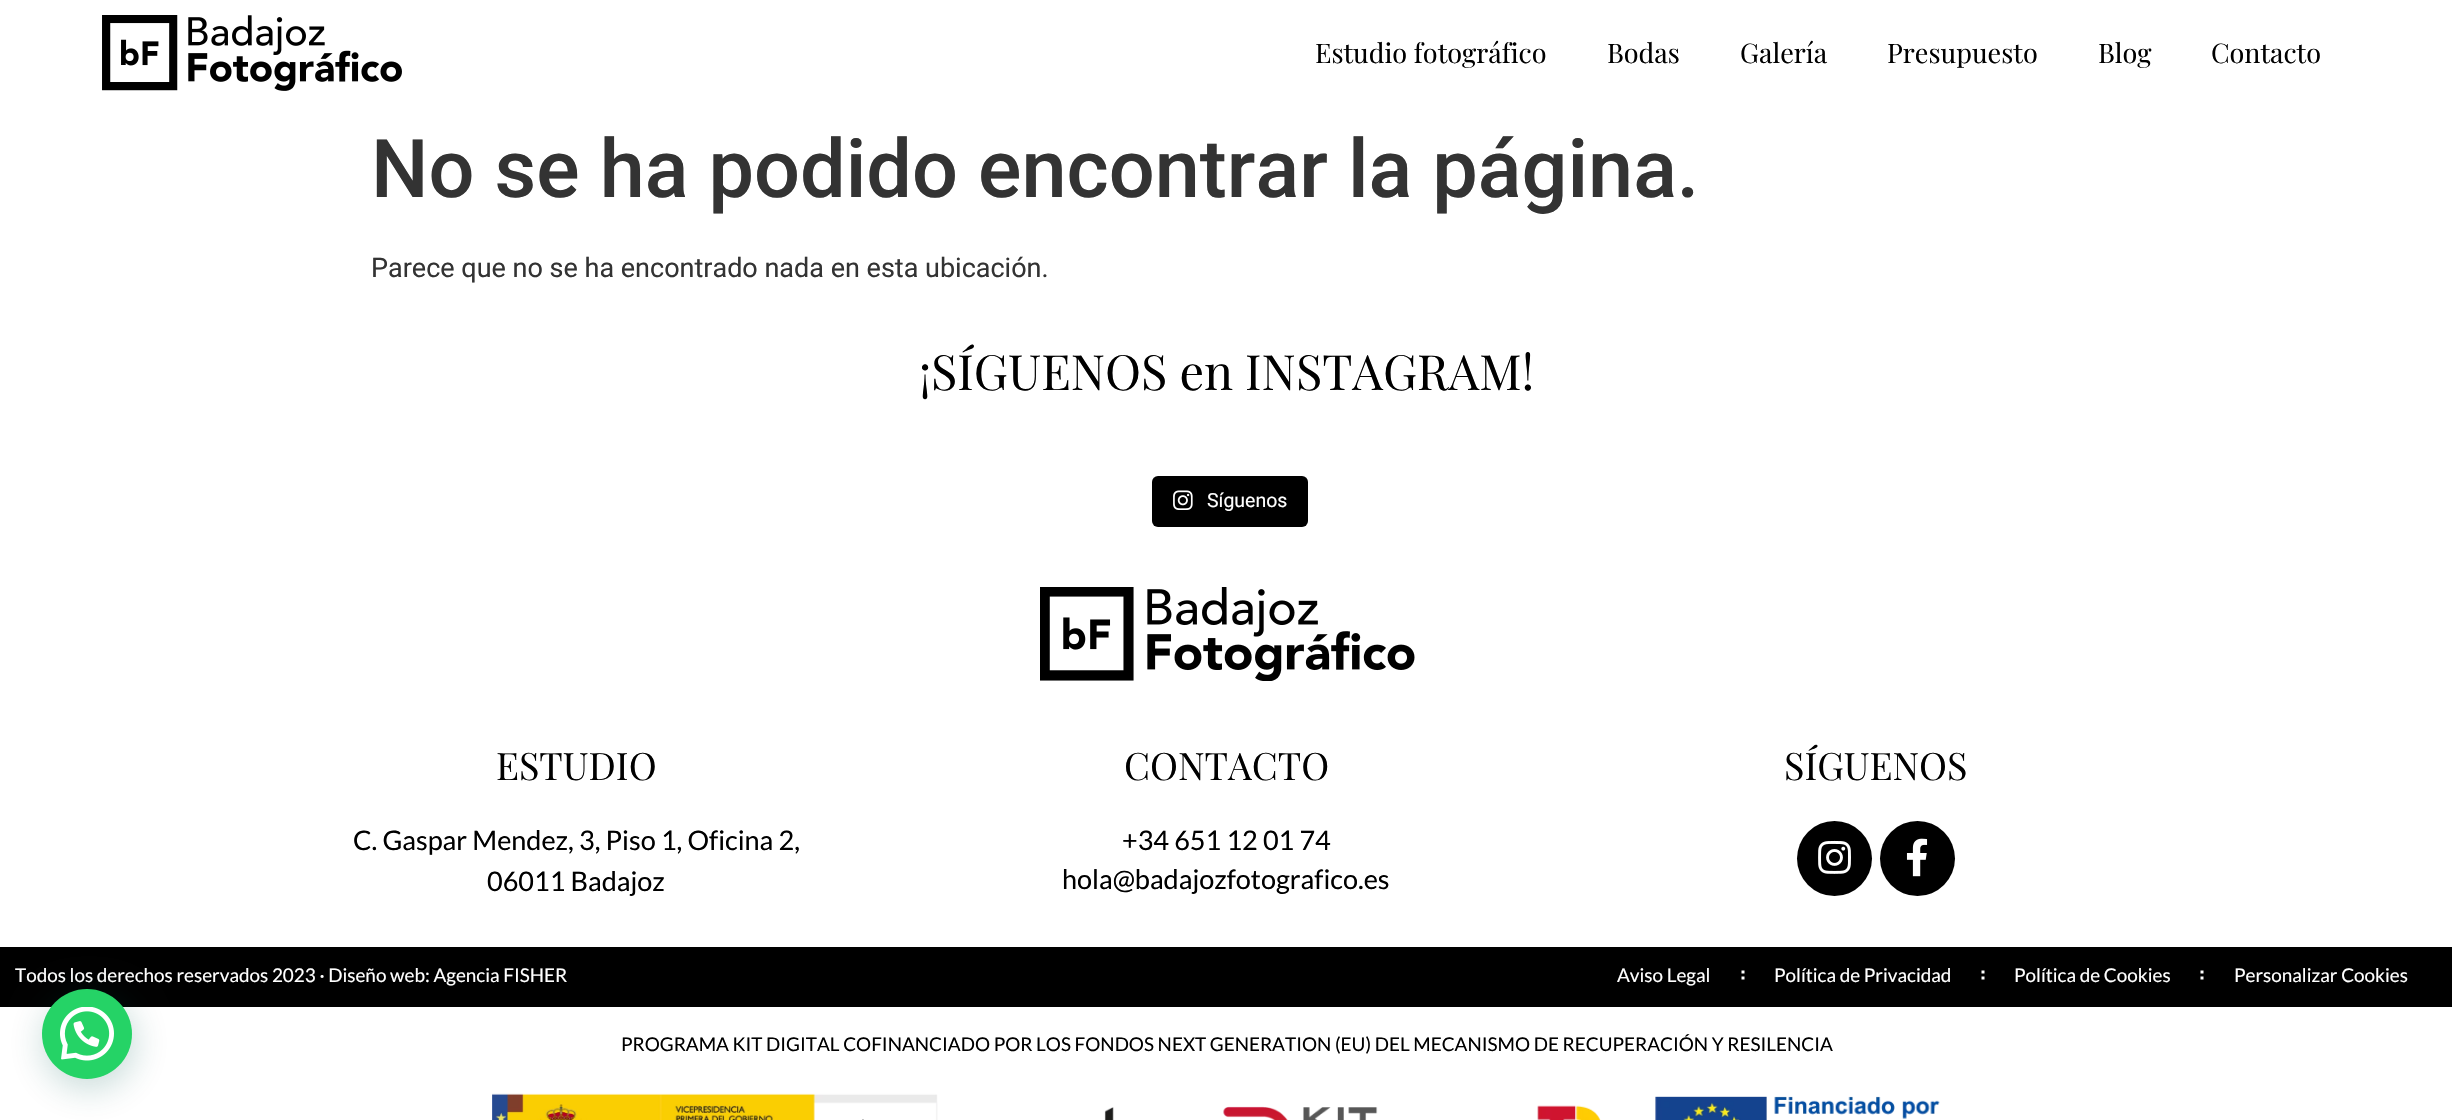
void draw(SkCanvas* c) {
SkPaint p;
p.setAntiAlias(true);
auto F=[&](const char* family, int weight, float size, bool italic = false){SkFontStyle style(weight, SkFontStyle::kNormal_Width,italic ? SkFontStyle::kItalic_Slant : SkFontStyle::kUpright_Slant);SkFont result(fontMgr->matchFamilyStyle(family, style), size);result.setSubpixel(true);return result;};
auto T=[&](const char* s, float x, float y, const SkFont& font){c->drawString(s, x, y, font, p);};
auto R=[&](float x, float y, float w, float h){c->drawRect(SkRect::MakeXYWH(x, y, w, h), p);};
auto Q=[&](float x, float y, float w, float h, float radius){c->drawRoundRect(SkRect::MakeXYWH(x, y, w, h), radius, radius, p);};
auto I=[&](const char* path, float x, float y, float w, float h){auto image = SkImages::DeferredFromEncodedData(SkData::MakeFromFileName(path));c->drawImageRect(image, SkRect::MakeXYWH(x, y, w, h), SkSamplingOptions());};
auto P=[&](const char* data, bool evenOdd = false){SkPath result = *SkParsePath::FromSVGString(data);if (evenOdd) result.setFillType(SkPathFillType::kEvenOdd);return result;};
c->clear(0xffffffff);
I("1.png",102,15,300,76);
auto f1 = F("Playfair Display",400,27);
p.setColor(0xff000000);
T("Estudio fotográfico",1315,63,f1);
T("Bodas",1607,63,f1);
T("Galería",1740,63,f1);
T("Presupuesto",1887,63,f1);
T("Blog",2098,63,f1);
T("Contacto",2211,63,f1);
auto f2 = F("Roboto",500,81);
p.setColor(0xff333333);
T("No se ha podido encontrar la página.",371,197,f2);
auto f3 = F("Roboto",400,27);
T("Parece que no se ha encontrado nada en esta ubicación.",371,277,f3);
auto f4 = F("Playfair Display",400,48.6);
p.setColor(0xff000000);
T("¡SÍGUENOS en INSTAGRAM!",919,390,f4);
Q(1152,476,156,51,6);
I("2.png",1173,490,20,20);
auto f5 = F("Roboto",400,19.5);
p.setColor(0xffffffff);
T("Síguenos",1207,507,f5);
I("3.png",1040,587,375,94);
auto f6 = F("Playfair Display",400,37.75);
p.setColor(0xff000000);
T("ESTUDIO",496,780,f6);
auto f7 = F("Lato",400,27);
T("C. Gaspar Mendez, 3, Piso 1, Oficina 2,",353,850,f7);
T("06011 Badajoz",487,891,f7);
T("CONTACTO",1124,780,f6);
T("+34 651 12 01 74",1122,850,f7);
T("hola@badajozfotografico.es",1062,889,f7);
T("SÍGUENOS",1784,780,f6);
c->drawCircle(1834.5,858.5,37.5,p);
I("4.png",1818,840,33,34);
c->drawCircle(1917.5,858.5,37.5,p);
I("5.png",1906,838,22,39);
R(0,947,2452,60);
auto f8 = F("Lato",400,18.9);
p.setColor(0xffffffff);
T("Todos los derechos reservados 2023 · Diseño web: Agencia FISHER",15,982,f8);
T("Aviso Legal",1617,982,f8);
p.setStroke(true);
p.setStrokeWidth(3);
c->drawPath(P("M1743 970.5v3m0 3v3"),p);
p.setStroke(false);
T("Política de Privacidad",1774,982,f8);
p.setStroke(true);
c->drawPath(P("M1983 970.5v3m0 3v3"),p);
p.setStroke(false);
T("Política de Cookies",2014,982,f8);
p.setStroke(true);
c->drawPath(P("M2202 970.5v3m0 3v3"),p);
p.setStroke(false);
T("Personalizar Cookies",2234,982,f8);
p.setColor(0xff000000);
T("PROGRAMA KIT DIGITAL COFINANCIADO POR LOS FONDOS NEXT GENERATION (EU) DEL MECANISMO DE RECUPERACIÓN Y RESILENCIA",621,1051,f8);
I("6.png",492,1093,446,27);
I("7.png",1104,1106,274,14);
I("8.png",1537,1096,403,24);
p.setColor(0x3d075e54);
p.setMaskFilter(SkMaskFilter::MakeBlur(kNormal_SkBlurStyle, 18));
c->drawRoundRect(SkRect::MakeXYWH(44,998,90,90),45,45,p);
p.setMaskFilter(nullptr);
p.setColor(0xff25d366);
c->drawCircle(87,1034,45,p);
I("9.png",60,1007,54,54);
}
